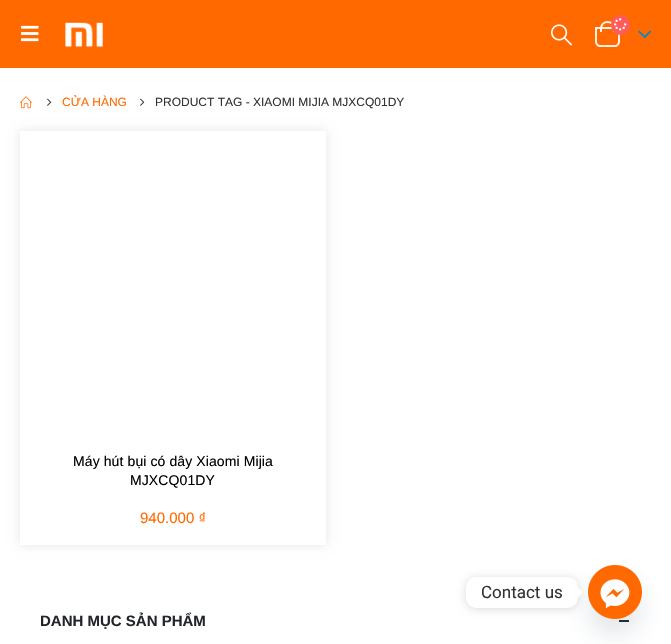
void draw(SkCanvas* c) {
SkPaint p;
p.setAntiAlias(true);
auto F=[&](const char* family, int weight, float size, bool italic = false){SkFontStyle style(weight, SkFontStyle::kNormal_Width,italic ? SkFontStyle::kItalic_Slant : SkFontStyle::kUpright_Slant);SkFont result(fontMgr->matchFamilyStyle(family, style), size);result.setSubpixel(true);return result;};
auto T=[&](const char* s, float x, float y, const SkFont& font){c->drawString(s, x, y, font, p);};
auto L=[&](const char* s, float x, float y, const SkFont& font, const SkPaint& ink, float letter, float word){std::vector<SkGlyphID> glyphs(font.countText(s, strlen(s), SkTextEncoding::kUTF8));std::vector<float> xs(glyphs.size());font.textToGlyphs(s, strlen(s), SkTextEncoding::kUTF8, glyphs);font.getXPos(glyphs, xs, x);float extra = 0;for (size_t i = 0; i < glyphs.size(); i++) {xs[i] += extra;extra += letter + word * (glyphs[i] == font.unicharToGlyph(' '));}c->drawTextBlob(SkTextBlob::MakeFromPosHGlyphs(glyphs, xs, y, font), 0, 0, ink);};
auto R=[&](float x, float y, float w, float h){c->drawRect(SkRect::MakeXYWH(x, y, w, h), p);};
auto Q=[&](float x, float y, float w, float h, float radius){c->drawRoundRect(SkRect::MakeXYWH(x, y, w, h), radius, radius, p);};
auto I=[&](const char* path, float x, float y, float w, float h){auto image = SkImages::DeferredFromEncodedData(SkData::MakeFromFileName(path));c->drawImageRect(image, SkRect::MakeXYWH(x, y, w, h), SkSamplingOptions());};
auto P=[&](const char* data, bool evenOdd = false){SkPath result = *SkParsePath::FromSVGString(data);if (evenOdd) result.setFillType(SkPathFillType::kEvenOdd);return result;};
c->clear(0xffffffff);
p.setColor(0xffff6900);
R(0,0,671,68);
I("1.png",21,25,18,17);
I("2.png",65,22,38,26);
I("3.png",551,24,21,22);
p.setStroke(true);
p.setStrokeWidth(2);
p.setColor(0xfffff0e6);
c->drawPath(P("M596 28h23v14c0 2-2 4-4 4h-15c-2 0-4-2-4-4z"),p);
p.setStroke(false);
c->drawPath(P("M607.5 21c4 0 7.5 3.5 7.5 7.5v3.5h-15v-3.5c0-4 3.5-7.5 7.5-7.5zm0 2c5.5 0 5.5 5 5.5 9h-11c0-4 0-9 5.5-9z",true),p);
p.setColor(0xffff5b5b);
Q(611,15,19,20,9.5);
I("4.png",614,18,13,13);
I("5.png",638,30,14,9);
I("6.png",20,96,12,13);
I("7.png",47,98,5,8);
auto f1 = F("Liberation Sans",400,12);
p.setColor(0xffff6900);
T("CỬA HÀNG",62,106,f1);
I("7.png",140,98,5,8);
p.setColor(0xff333333);
T("PRODUCT TAG - XIAOMI MIJIA MJXCQ01DY",155,106,f1);
c->save();
c->clipPath(P("M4 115h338v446h-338zm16 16h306v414h-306z",true),true);
p.setColor(0x1a000000);
p.setMaskFilter(SkMaskFilter::MakeBlur(kNormal_SkBlurStyle, 5));
c->drawRect(SkRect::MakeXYWH(20,131,306,414),p);
p.setMaskFilter(nullptr);
c->restore();
auto f2 = F("Liberation Sans",400,14);
p.setColor(0xff000000);
L("Máy hút bụi có dây Xiaomi Mijia",73,466,f2,p,.1,0);
L("MJXCQ01DY",130,485,f2,p,.1,0);
auto f3 = F("Liberation Sans",400,15);
p.setColor(0xffff6900);
T("940.000 ₫",140,523,f3);
auto f4 = F("Liberation Sans",700,15);
p.setColor(0xff222529);
T("DANH MỤC SẢN PHẨM",40,626,f4);
R(619,620,10,2);
p.setColor(0x2949687e);
p.setMaskFilter(SkMaskFilter::MakeBlur(kNormal_SkBlurStyle, 12));
c->drawRoundRect(SkRect::MakeXYWH(588,581,54,54),27,27,p);
p.setMaskFilter(nullptr);
I("8.png",588,565,54,54);
p.setColor(0x26000000);
p.setMaskFilter(SkMaskFilter::MakeBlur(kNormal_SkBlurStyle, 4));
c->drawRoundRect(SkRect::MakeXYWH(466,578,112,31),10,10,p);
p.setMaskFilter(nullptr);
p.setColor(0xffffffff);
Q(466,577,112,31,10);
auto f5 = F("Roboto",400,17);
p.setColor(0xff333333);
T("Contact us",481,598,f5);
p.setColor(0xffffffff);
c->drawPath(P("M578 597.5v-10l5 5z"),p);
}
